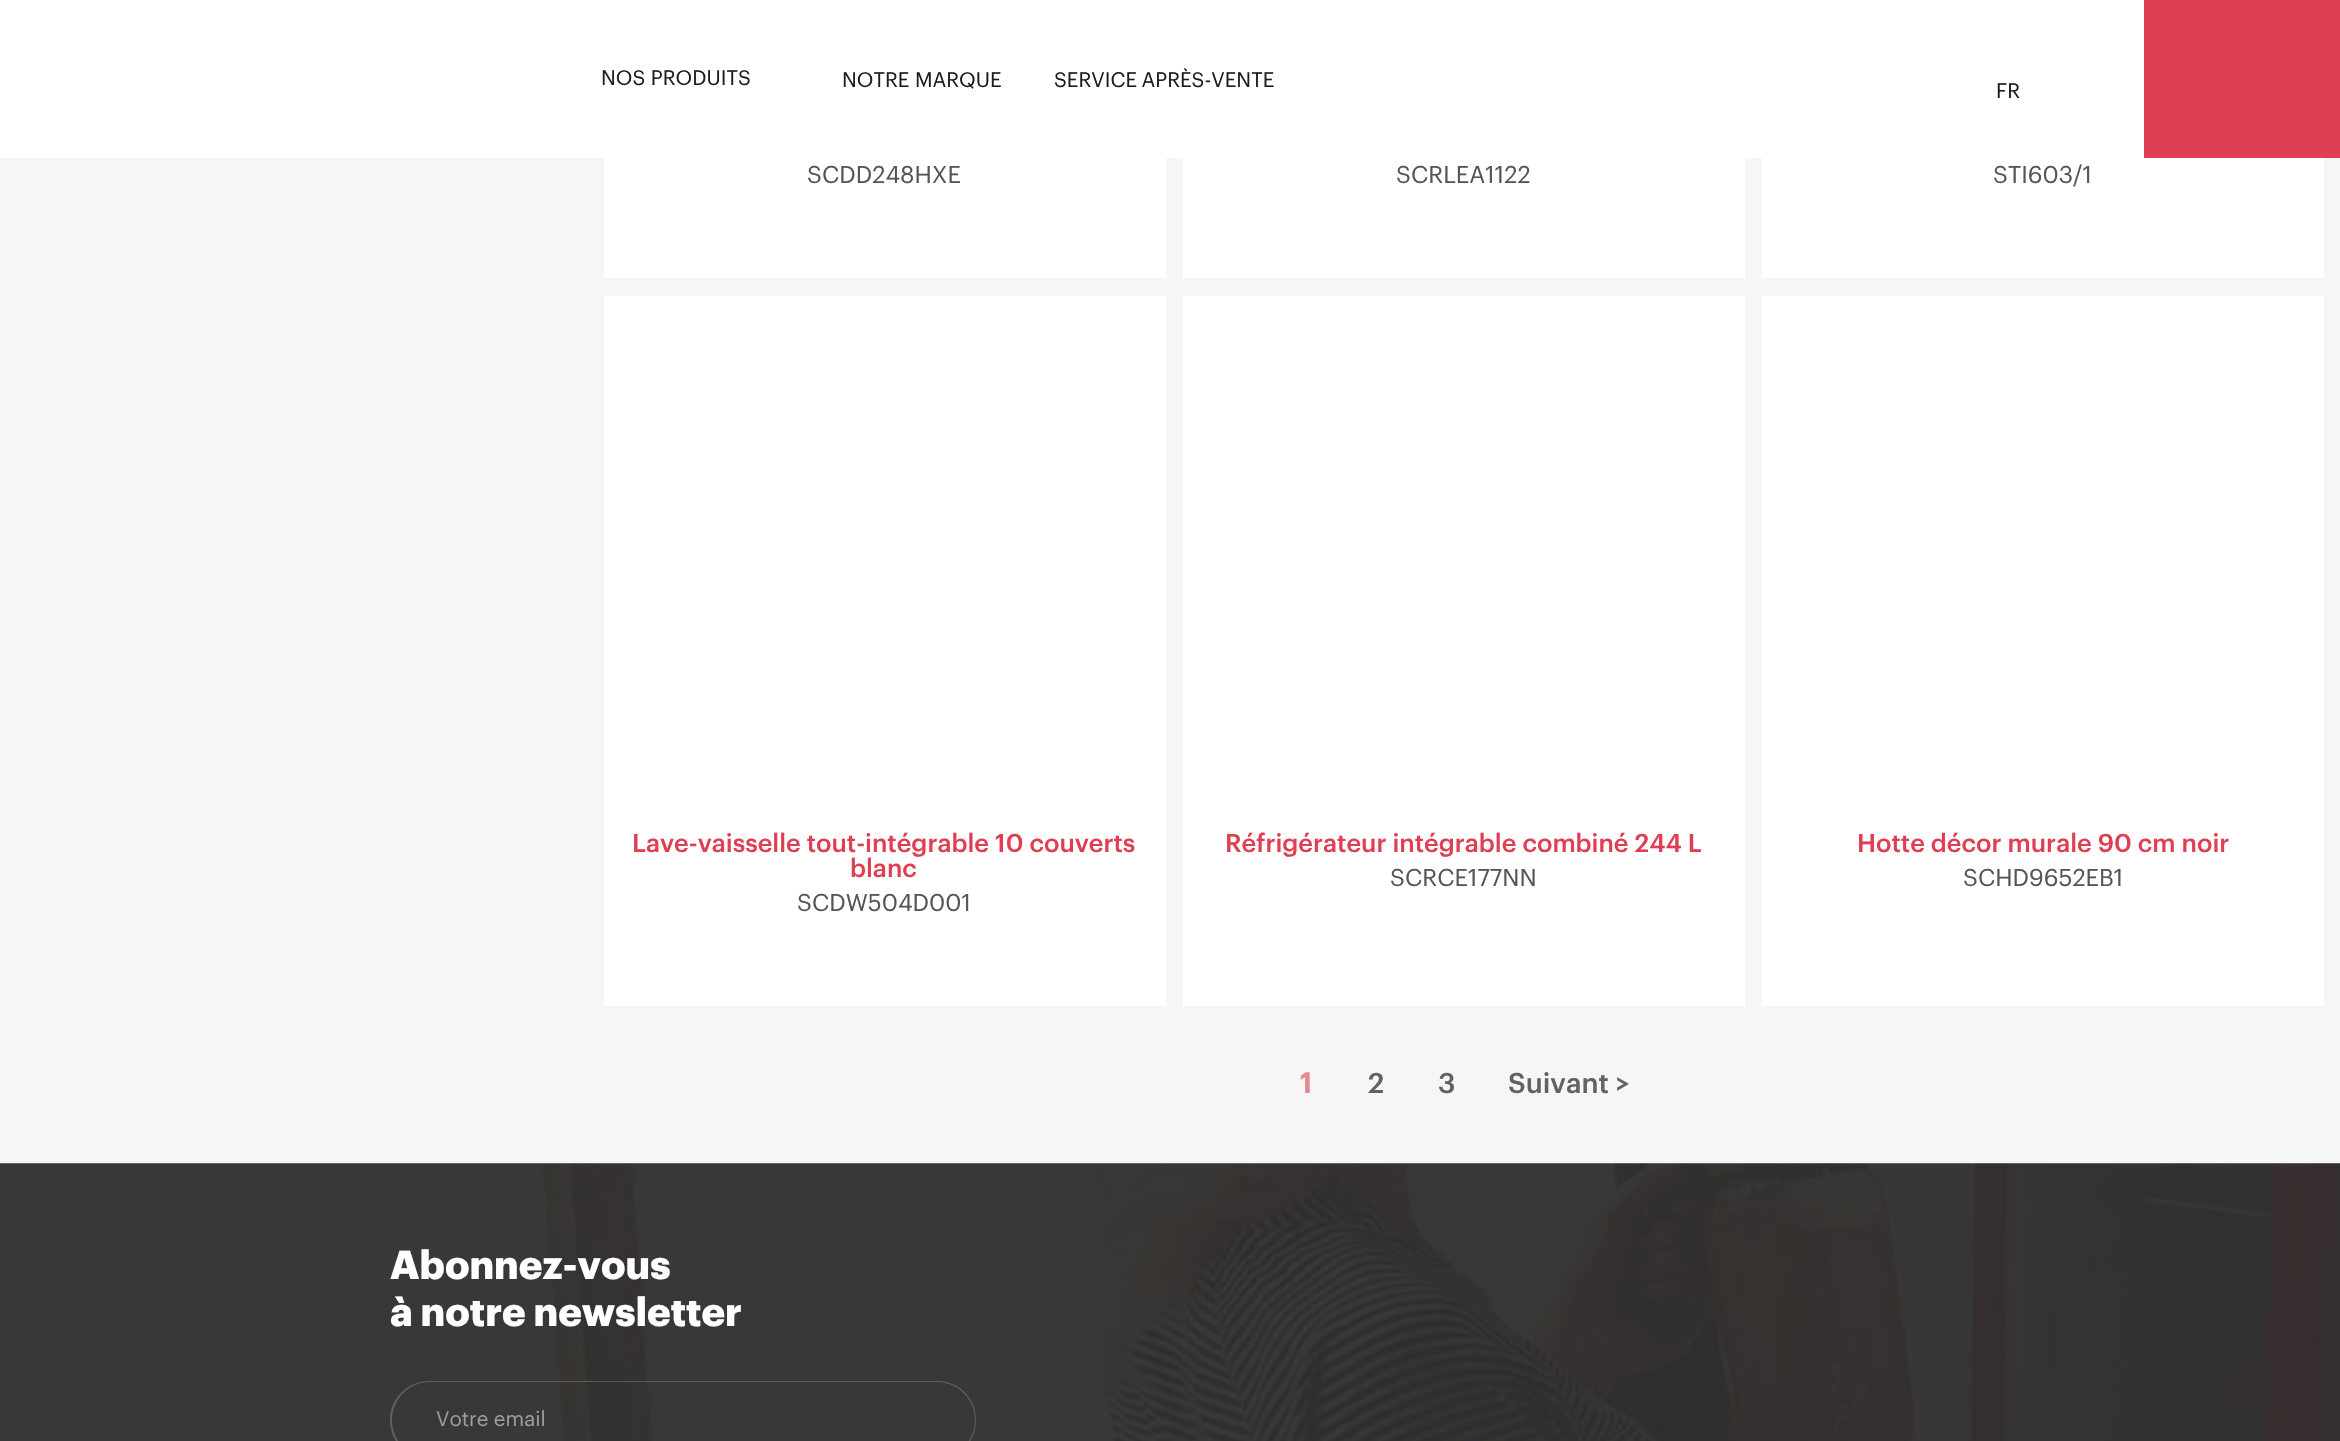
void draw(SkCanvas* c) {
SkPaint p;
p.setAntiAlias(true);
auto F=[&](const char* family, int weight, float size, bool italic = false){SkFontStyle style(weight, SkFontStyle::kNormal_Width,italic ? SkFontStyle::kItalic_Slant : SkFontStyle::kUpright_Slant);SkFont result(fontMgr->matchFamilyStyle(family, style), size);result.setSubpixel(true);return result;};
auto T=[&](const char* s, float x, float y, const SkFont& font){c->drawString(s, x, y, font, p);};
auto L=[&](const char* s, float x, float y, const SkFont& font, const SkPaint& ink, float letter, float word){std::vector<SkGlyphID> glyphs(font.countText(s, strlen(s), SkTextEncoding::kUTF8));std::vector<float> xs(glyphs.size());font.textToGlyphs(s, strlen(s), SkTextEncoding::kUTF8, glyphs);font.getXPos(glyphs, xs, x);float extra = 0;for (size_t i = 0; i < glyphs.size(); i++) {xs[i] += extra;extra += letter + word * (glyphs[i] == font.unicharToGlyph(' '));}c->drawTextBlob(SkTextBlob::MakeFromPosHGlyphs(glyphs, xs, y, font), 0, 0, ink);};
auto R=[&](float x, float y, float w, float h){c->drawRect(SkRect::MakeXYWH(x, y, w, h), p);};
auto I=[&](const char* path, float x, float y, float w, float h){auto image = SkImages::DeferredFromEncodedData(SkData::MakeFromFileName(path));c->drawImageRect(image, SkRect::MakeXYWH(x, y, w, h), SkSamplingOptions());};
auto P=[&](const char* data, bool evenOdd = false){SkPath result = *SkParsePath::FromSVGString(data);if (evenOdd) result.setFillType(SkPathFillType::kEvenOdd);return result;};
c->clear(0xfff6f6f6);
p.setColor(0xffffffff);
R(0,0,2144,158);
auto f1 = F("Graphik",400,20.5);
p.setColor(0xff1c1c1c);
T("NOS PRODUITS",601,85,f1);
T("NOTRE MARQUE",842,87,f1);
L("SERVICE APRÈS-VENTE",1054,87,f1,p,0,-1);
T("FR",1996,98,f1);
p.setColor(0xffe03e52);
R(2144,0,196,158);
p.setColor(0xffffffff);
R(604,158,562,120);
auto f2 = F("Graphik",400,23.75);
p.setColor(0xff555555);
T("SCDD248HXE",807,183,f2);
p.setColor(0xffffffff);
R(1183,158,562,120);
p.setColor(0xff555555);
T("SCRLEA1122",1396,183,f2);
p.setColor(0xffffffff);
R(1762,158,562,120);
p.setColor(0xff555555);
T("STI603/1",1993,183,f2);
p.setColor(0xffffffff);
R(604,296,562,710);
auto f3 = F("Graphik",500,25.3);
p.setColor(0xffe03e52);
T("Lave-vaisselle tout-intégrable 10 couverts",632,852,f3);
T("blanc",850,877,f3);
p.setColor(0xff555555);
T("SCDW504D001",797,911,f2);
p.setColor(0xffffffff);
R(1183,296,562,710);
p.setColor(0xffe03e52);
T("Réfrigérateur intégrable combiné 244 L",1225,852,f3);
p.setColor(0xff555555);
T("SCRCE177NN",1390,886,f2);
p.setColor(0xffffffff);
R(1762,296,562,710);
p.setColor(0xffe03e52);
T("Hotte décor murale 90 cm noir",1857,852,f3);
p.setColor(0xff555555);
T("SCHD9652EB1",1963,886,f2);
auto f4 = F("Graphik",700,28);
p.setColor(0xffe98894);
T("1",1300,1093,f4);
auto f5 = F("Graphik",500,28);
p.setColor(0xff626262);
T("2",1368,1093,f5);
T("3",1438,1093,f5);
T("Suivant >",1508,1093,f5);
I("1.png",0,1163,2340,278);
auto f6 = F("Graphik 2",700,39.5);
p.setColor(0xffffffff);
T("Abonnez-vous",390,1279,f6);
T("à notre newsletter",390,1326,f6);
p.setColor(0x33ffffff);
c->drawPath(P("M430 1381h450v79h-450c-22 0-40-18-40-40c0-22 18-39 40-39zm0 1h450v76h-450c-21 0-38-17-38-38c0-21 17-38 38-38z",true),p);
p.setColor(0xff9c9c9c);
T("Votre email",436,1426,f1);
p.setColor(0xff606060);
c->drawPath(P("M880 1381h57c22 0 39 17 39 39c0 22-17 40-39 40h-57zm0 1h57c21 0 38 17 38 38c0 21-17 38-38 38h-57z",true),p);
}
